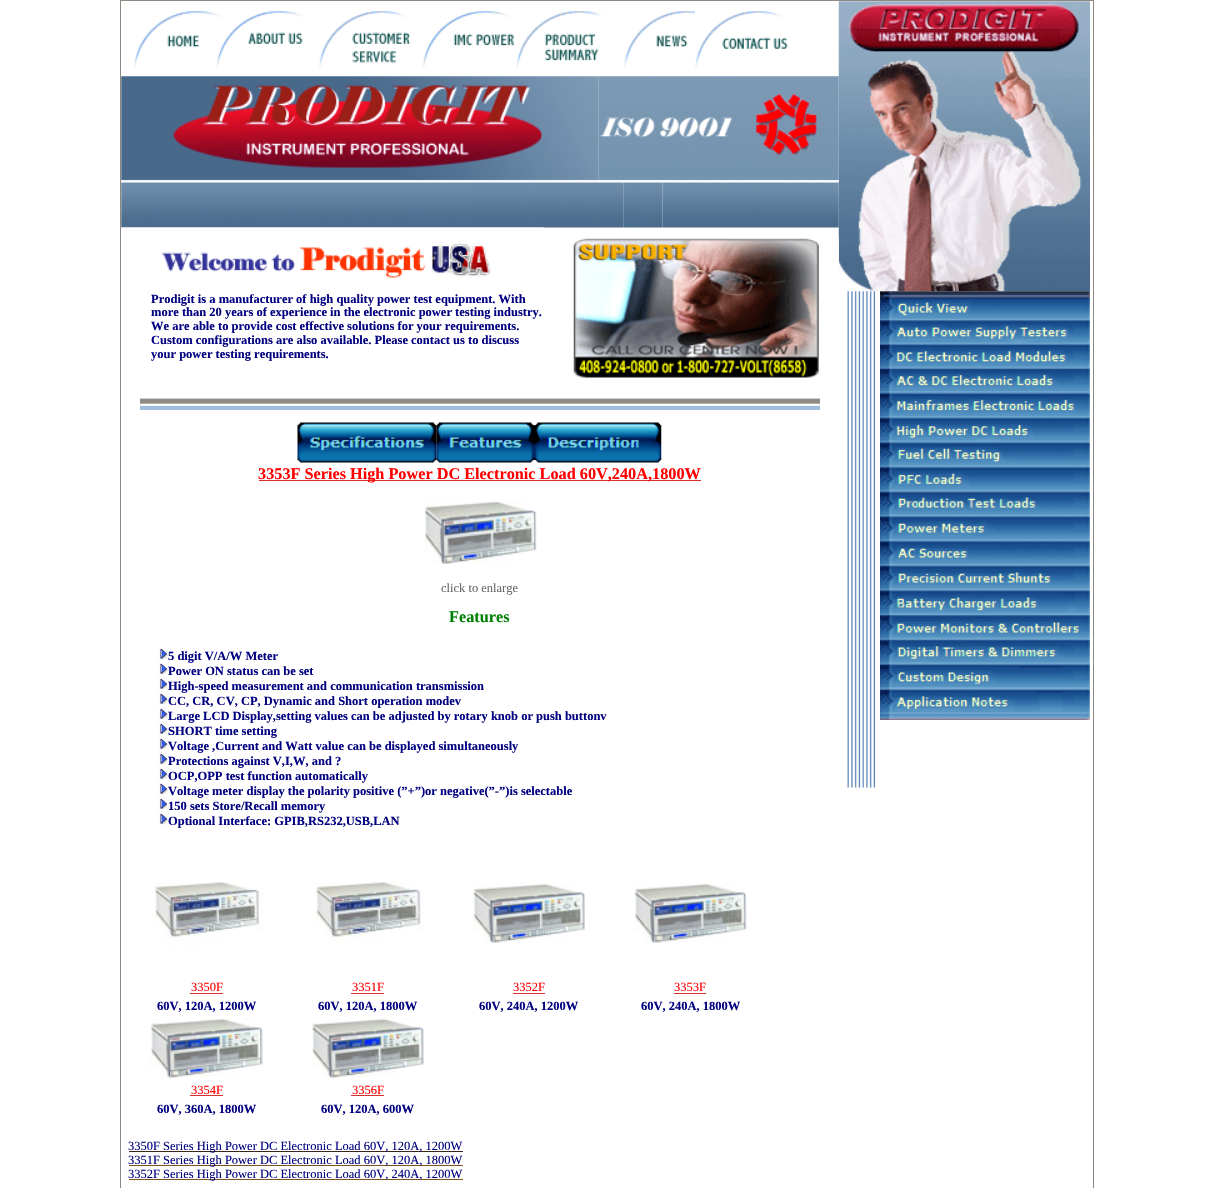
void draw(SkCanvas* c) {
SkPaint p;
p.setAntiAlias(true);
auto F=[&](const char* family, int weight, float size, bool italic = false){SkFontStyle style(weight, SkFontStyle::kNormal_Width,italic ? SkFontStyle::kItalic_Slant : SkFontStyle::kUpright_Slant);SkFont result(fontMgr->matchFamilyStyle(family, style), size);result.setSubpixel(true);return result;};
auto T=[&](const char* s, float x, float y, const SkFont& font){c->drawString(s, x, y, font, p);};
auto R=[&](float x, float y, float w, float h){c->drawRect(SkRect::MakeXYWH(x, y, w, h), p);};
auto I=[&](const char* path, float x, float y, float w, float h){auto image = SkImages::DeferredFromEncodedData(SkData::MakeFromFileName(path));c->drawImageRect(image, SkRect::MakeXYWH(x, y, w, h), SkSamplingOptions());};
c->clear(0xffffffff);
p.setColor(0xff8d8882);
R(120,0,974,1);
R(1093,0,1,1188);
R(120,0,1,1188);
I("1.png",134,11,83,58);
I("2.png",216,11,87,57);
I("3.png",319,11,92,58);
I("4.png",422,11,92,57);
I("5.png",516,11,86,57);
I("6.png",624,11,71,58);
I("7.png",695,11,93,58);
I("8.png",838,1,252,291);
I("9.png",121,76,478,105);
I("10.png",598,76,241,107);
I("11.png",121,182,349,46);
I("12.png",470,182,154,46);
I("13.png",623,182,40,46);
I("14.png",662,182,177,46);
I("15.png",121,227,423,51);
I("16.png",573,236,266,142);
auto f1 = F("Liberation Serif",700,12.5);
p.setColor(0xff000080);
T("Prodigit is a manufacturer of high quality power test equipment. With",151,303,f1);
T("more than 20 years of experience in the electronic power testing industry.",151,316,f1);
T("We are able to provide cost effective solutions for your requirements.",151,330,f1);
T("Custom configurations are also available. Please contact us to discuss",151,344,f1);
T("your power testing requirements.",151,358,f1);
I("17.png",847,291,28,497);
I("18.png",880,291,210,429);
I("19.png",140,398,680,12);
I("20.png",297,422,140,41);
I("21.png",436,422,99,41);
I("22.png",535,422,127,41);
p.setColor(0xffd9302b);
R(259,480,442,1);
auto f2 = F("Liberation Serif",700,16.25);
p.setColor(0xffff0000);
T("3353F Series High Power DC Electronic Load 60V,240A,1800W",258,479,f2);
I("23.png",424,500,113,64);
auto f3 = F("Liberation Serif",400,12.5);
p.setColor(0xff666666);
T("click to enlarge",441,592,f3);
p.setColor(0xff008000);
T("Features",449,622,f2);
I("24.png",158,647,11,13);
p.setColor(0xff000080);
T("5 digit V/A/W Meter",168,660,f1);
I("24.png",158,662,11,13);
T("Power ON status can be set",168,675,f1);
I("24.png",158,677,11,13);
T("High-speed measurement and communication transmission",168,690,f1);
I("24.png",158,692,11,13);
T("CC, CR, CV, CP, Dynamic and Short operation modev",168,705,f1);
I("24.png",158,707,11,13);
T("Large LCD Display,setting values can be adjusted by rotary knob or push buttonv",168,720,f1);
I("24.png",158,722,11,13);
T("SHORT time setting",168,735,f1);
I("24.png",158,737,11,13);
T("Voltage ,Current and Watt value can be displayed simultaneously",168,750,f1);
I("24.png",158,752,11,13);
T("Protections against V,I,W, and ?",168,765,f1);
I("24.png",158,767,11,13);
T("OCP,OPP test function automatically",168,780,f1);
I("24.png",158,782,11,13);
T("Voltage meter display the polarity positive (”+”)or negative(”-”)is selectable",168,795,f1);
I("24.png",158,797,11,13);
T("150 sets Store/Recall memory",168,810,f1);
I("24.png",158,812,11,13);
T("Optional Interface: GPIB,RS232,USB,LAN",168,825,f1);
I("25.png",154,882,109,68);
I("26.png",315,882,109,60);
I("27.png",472,883,113,60);
I("28.png",634,883,113,60);
p.setColor(0xffff0000);
T("3350F",191,991,f3);
p.setColor(0xffd9302b);
R(190,993,33,1);
p.setColor(0xffff0000);
T("3351F",352,991,f3);
p.setColor(0xffd9302b);
R(351,993,33,1);
p.setColor(0xffff0000);
T("3352F",513,991,f3);
p.setColor(0xffd9302b);
R(513,993,32,1);
p.setColor(0xffff0000);
T("3353F",674,991,f3);
p.setColor(0xffd9302b);
R(674,993,32,1);
p.setColor(0xff000080);
T("60V, 120A, 1200W",157,1010,f1);
T("60V, 120A, 1800W",318,1010,f1);
T("60V, 240A, 1200W",479,1010,f1);
T("60V, 240A, 1800W",641,1010,f1);
I("29.png",150,1018,113,60);
I("30.png",311,1018,113,60);
p.setColor(0xffff0000);
T("3354F",191,1094,f3);
p.setColor(0xffd9302b);
R(190,1095,33,1);
p.setColor(0xffff0000);
T("3356F",352,1094,f3);
p.setColor(0xffd9302b);
R(351,1095,33,1);
p.setColor(0xff000080);
T("60V, 360A, 1800W",157,1113,f1);
T("60V, 120A, 600W",321,1113,f1);
p.setColor(0xff39261a);
R(129,1151,334,1);
p.setColor(0xff000080);
T("3350F Series High Power DC Electronic Load 60V, 120A, 1200W",128,1150,f3);
p.setColor(0xff7e531f);
R(129,1165,334,1);
p.setColor(0xff000080);
T("3351F Series High Power DC Electronic Load 60V, 120A, 1800W",128,1164,f3);
p.setColor(0xff7e531f);
R(129,1179,334,1);
p.setColor(0xff000080);
T("3352F Series High Power DC Electronic Load 60V, 240A, 1200W",128,1178,f3);
}
